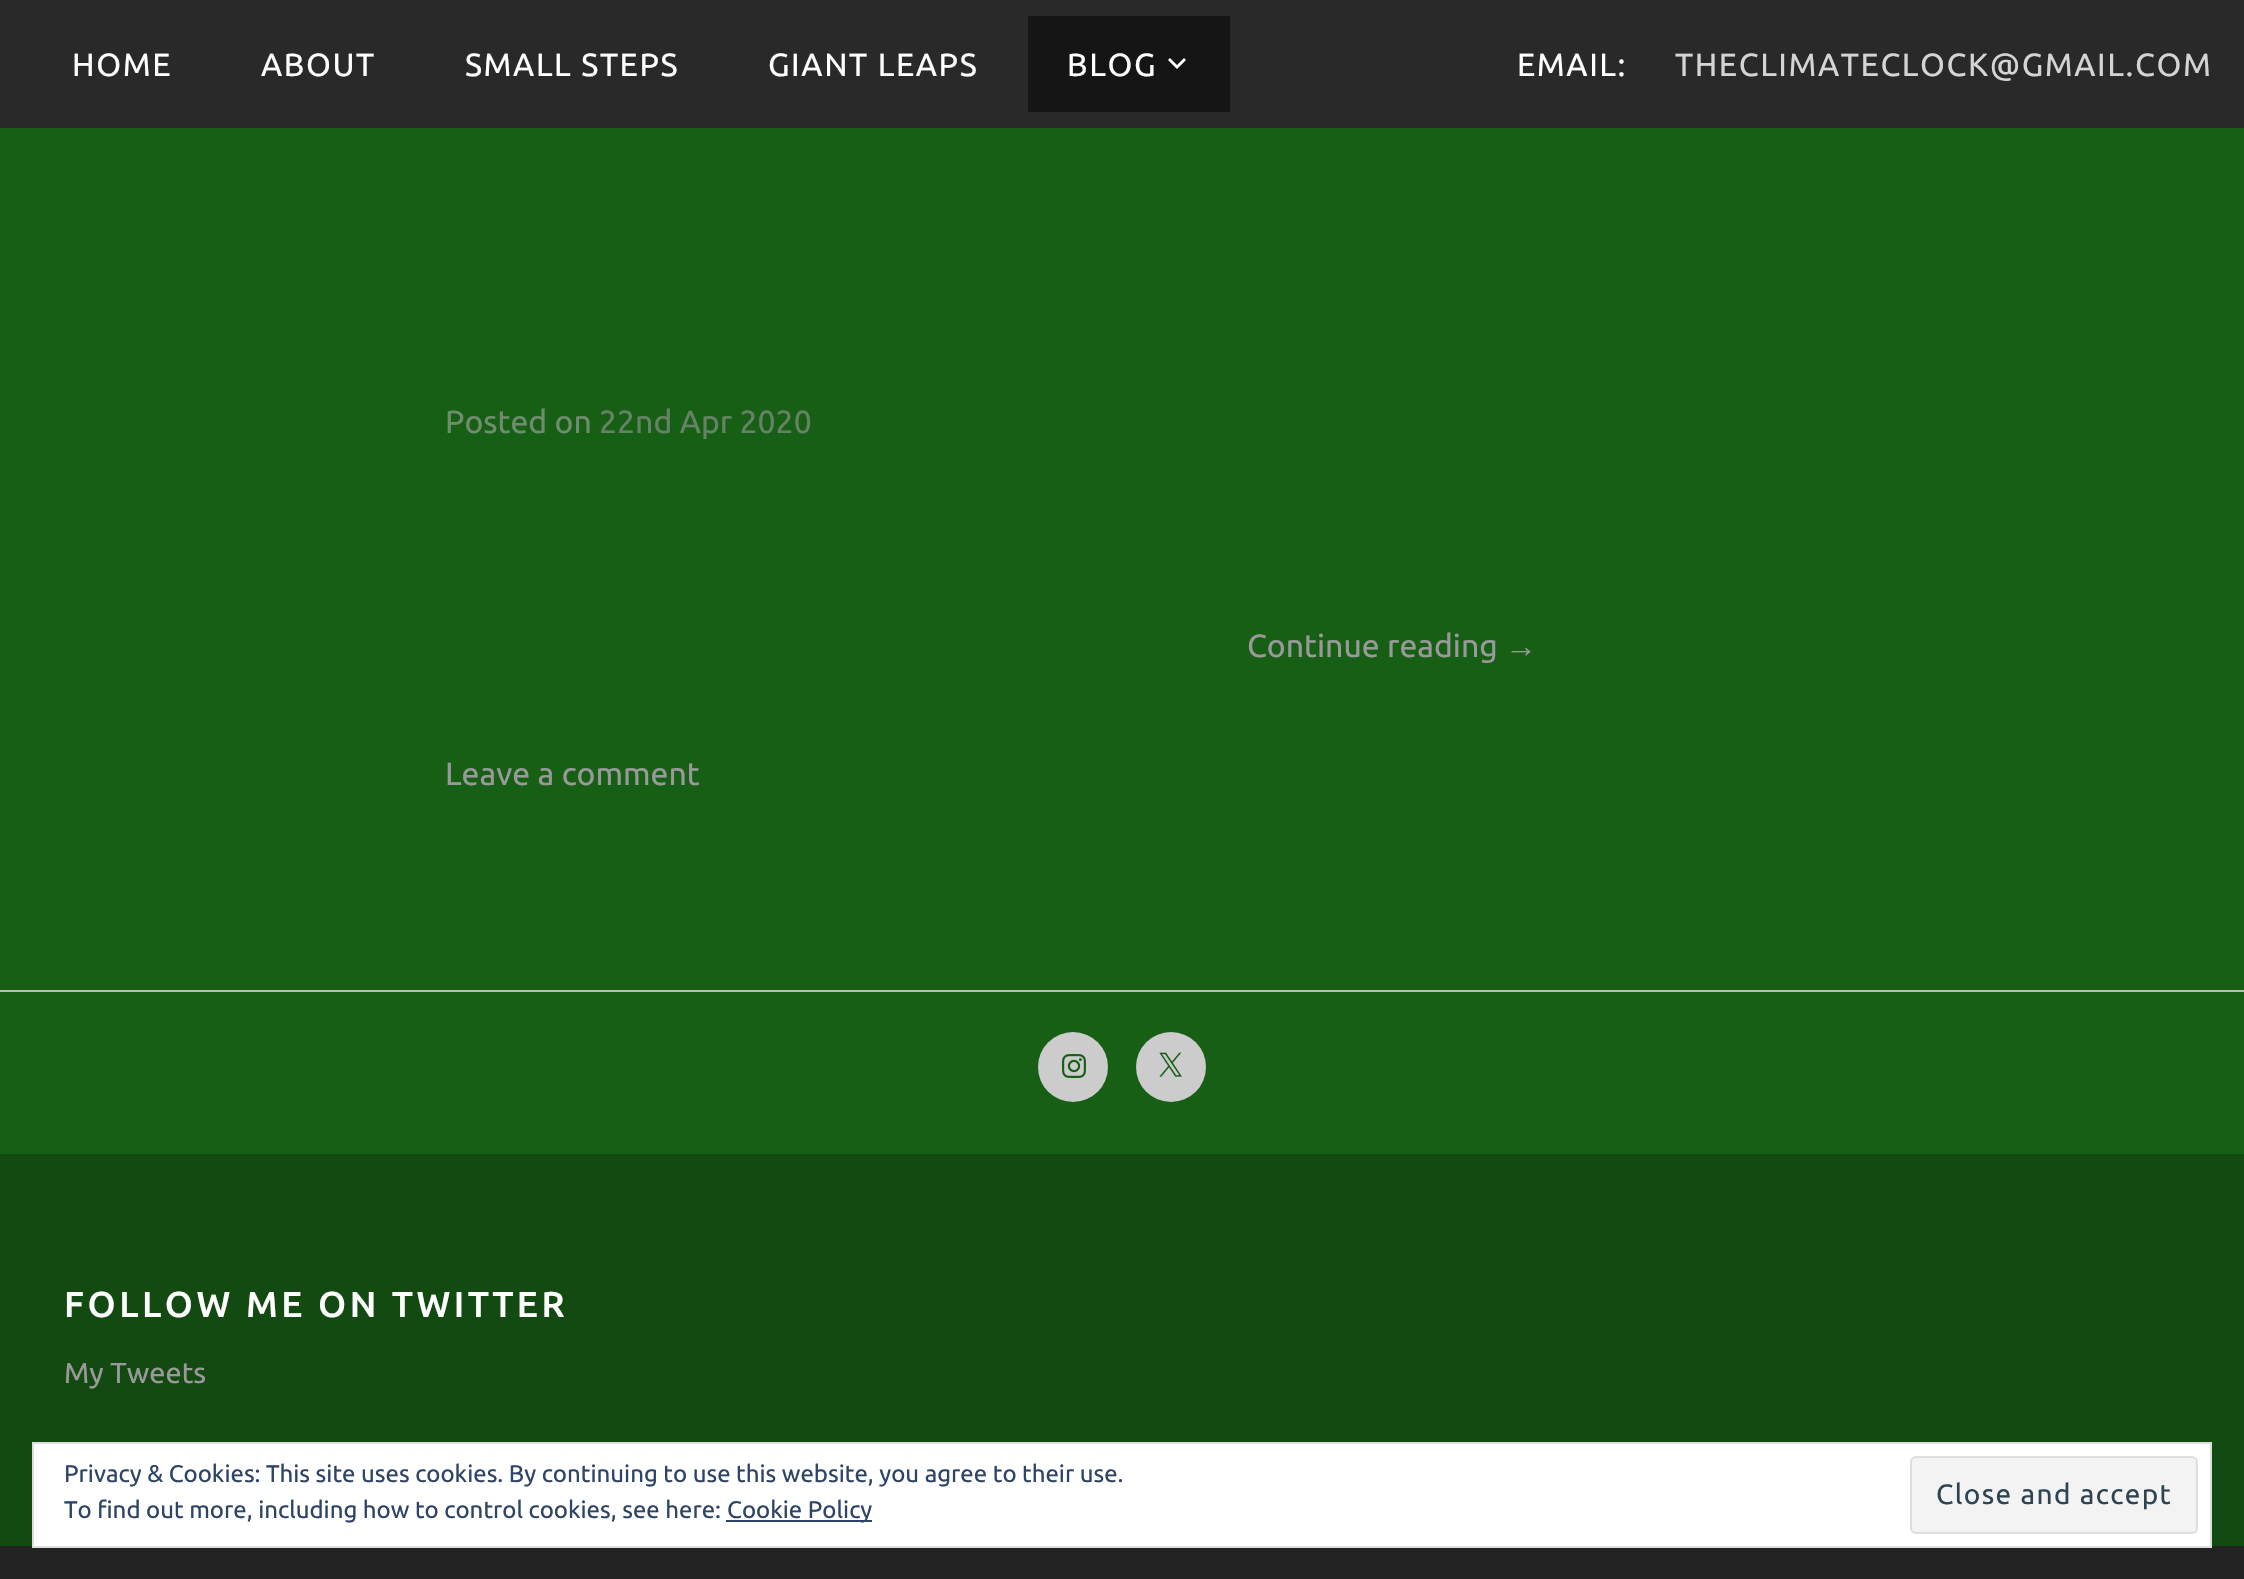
void draw(SkCanvas* c) {
SkPaint p;
p.setAntiAlias(true);
auto F=[&](const char* family, int weight, float size, bool italic = false){SkFontStyle style(weight, SkFontStyle::kNormal_Width,italic ? SkFontStyle::kItalic_Slant : SkFontStyle::kUpright_Slant);SkFont result(fontMgr->matchFamilyStyle(family, style), size);result.setSubpixel(true);return result;};
auto T=[&](const char* s, float x, float y, const SkFont& font){c->drawString(s, x, y, font, p);};
auto L=[&](const char* s, float x, float y, const SkFont& font, const SkPaint& ink, float letter, float word){std::vector<SkGlyphID> glyphs(font.countText(s, strlen(s), SkTextEncoding::kUTF8));std::vector<float> xs(glyphs.size());font.textToGlyphs(s, strlen(s), SkTextEncoding::kUTF8, glyphs);font.getXPos(glyphs, xs, x);float extra = 0;for (size_t i = 0; i < glyphs.size(); i++) {xs[i] += extra;extra += letter + word * (glyphs[i] == font.unicharToGlyph(' '));}c->drawTextBlob(SkTextBlob::MakeFromPosHGlyphs(glyphs, xs, y, font), 0, 0, ink);};
auto R=[&](float x, float y, float w, float h){c->drawRect(SkRect::MakeXYWH(x, y, w, h), p);};
auto I=[&](const char* path, float x, float y, float w, float h){auto image = SkImages::DeferredFromEncodedData(SkData::MakeFromFileName(path));c->drawImageRect(image, SkRect::MakeXYWH(x, y, w, h), SkSamplingOptions());};
auto P=[&](const char* data, bool evenOdd = false){SkPath result = *SkParsePath::FromSVGString(data);if (evenOdd) result.setFillType(SkPathFillType::kEvenOdd);return result;};
c->clear(0xff185f16);
p.setColor(0xff29292a);
R(0,0,2244,128);
auto f1 = F("Ubuntu",400,32);
p.setColor(0xffffffff);
L("HOME",72,76,f1,p,1.6,0);
L("ABOUT",261,76,f1,p,1.6,0);
L("SMALL STEPS",465,76,f1,p,1.6,0);
L("GIANT LEAPS",768,76,f1,p,1.6,0);
p.setColor(0xff151515);
R(1028,16,202,96);
p.setColor(0xffffffff);
L("BLOG",1067,76,f1,p,1.6,0);
c->drawPath(P("M1184 58l2 2l-9 9l-9-9l2-2l7 7z"),p);
L("EMAIL:",1517,76,f1,p,1.6,0);
p.setColor(0xffd4d4d4);
L("THECLIMATECLOCK@GMAIL.COM",1675,76,f1,p,1.6,0);
p.setColor(0xff708c6f);
T("Posted on",445,433,f1);
p.setColor(0xff658265);
T("22nd Apr 2020",599,433,f1);
p.setColor(0xff999999);
T("Continue reading",1247,657,f1);
auto f2 = F("Liberation Sans",400,32);
T("→",1505,657,f2);
T("Leave a comment",445,785,f1);
p.setColor(0xffbbbbbb);
R(0,990,2244,2);
p.setColor(0xffcccccc);
c->drawCircle(1073,1067,35,p);
I("1.png",1062,1054,24,24);
c->drawCircle(1171,1067,35,p);
I("2.png",1159,1052,23,25);
p.setColor(0xff134a11);
R(0,1154,2244,392);
auto f3 = F("Ubuntu",500,36);
p.setColor(0xffffffff);
L("FOLLOW ME ON TWITTER",64,1317,f3,p,3.6,0);
auto f4 = F("Ubuntu",400,29);
p.setColor(0xff999999);
T("My Tweets",64,1383,f4);
p.setColor(0xff222222);
R(0,1546,2244,33);
p.setColor(0xffffffff);
c->drawRect(SkRect::MakeXYWH(33,1443,2178,104),p);
p.setStroke(true);
p.setStrokeWidth(2);
p.setColor(0xffdedede);
c->drawRect(SkRect::MakeXYWH(33,1443,2178,104),p);
auto f5 = F("Ubuntu",400,24);
p.setStroke(false);
p.setColor(0xff2e4467);
T("Privacy & Cookies: This site uses cookies. By continuing to use this website, you agree to their use.",64,1482,f5);
T("To find out more, including how to control cookies, see here:",64,1518,f5);
R(726,1520,146,2);
T("Cookie Policy",727,1518,f5);
p.setColor(0xfff3f3f3);
c->drawRoundRect(SkRect::MakeXYWH(1911,1457,286,76),5,5,p);
p.setStroke(true);
p.setColor(0xffdedede);
c->drawRoundRect(SkRect::MakeXYWH(1911,1457,286,76),5,5,p);
auto f6 = F("Ubuntu",400,28);
p.setStroke(false);
p.setColor(0xff2e4453);
L("Close and accept",1936,1504,f6,p,1.4,0);
}
